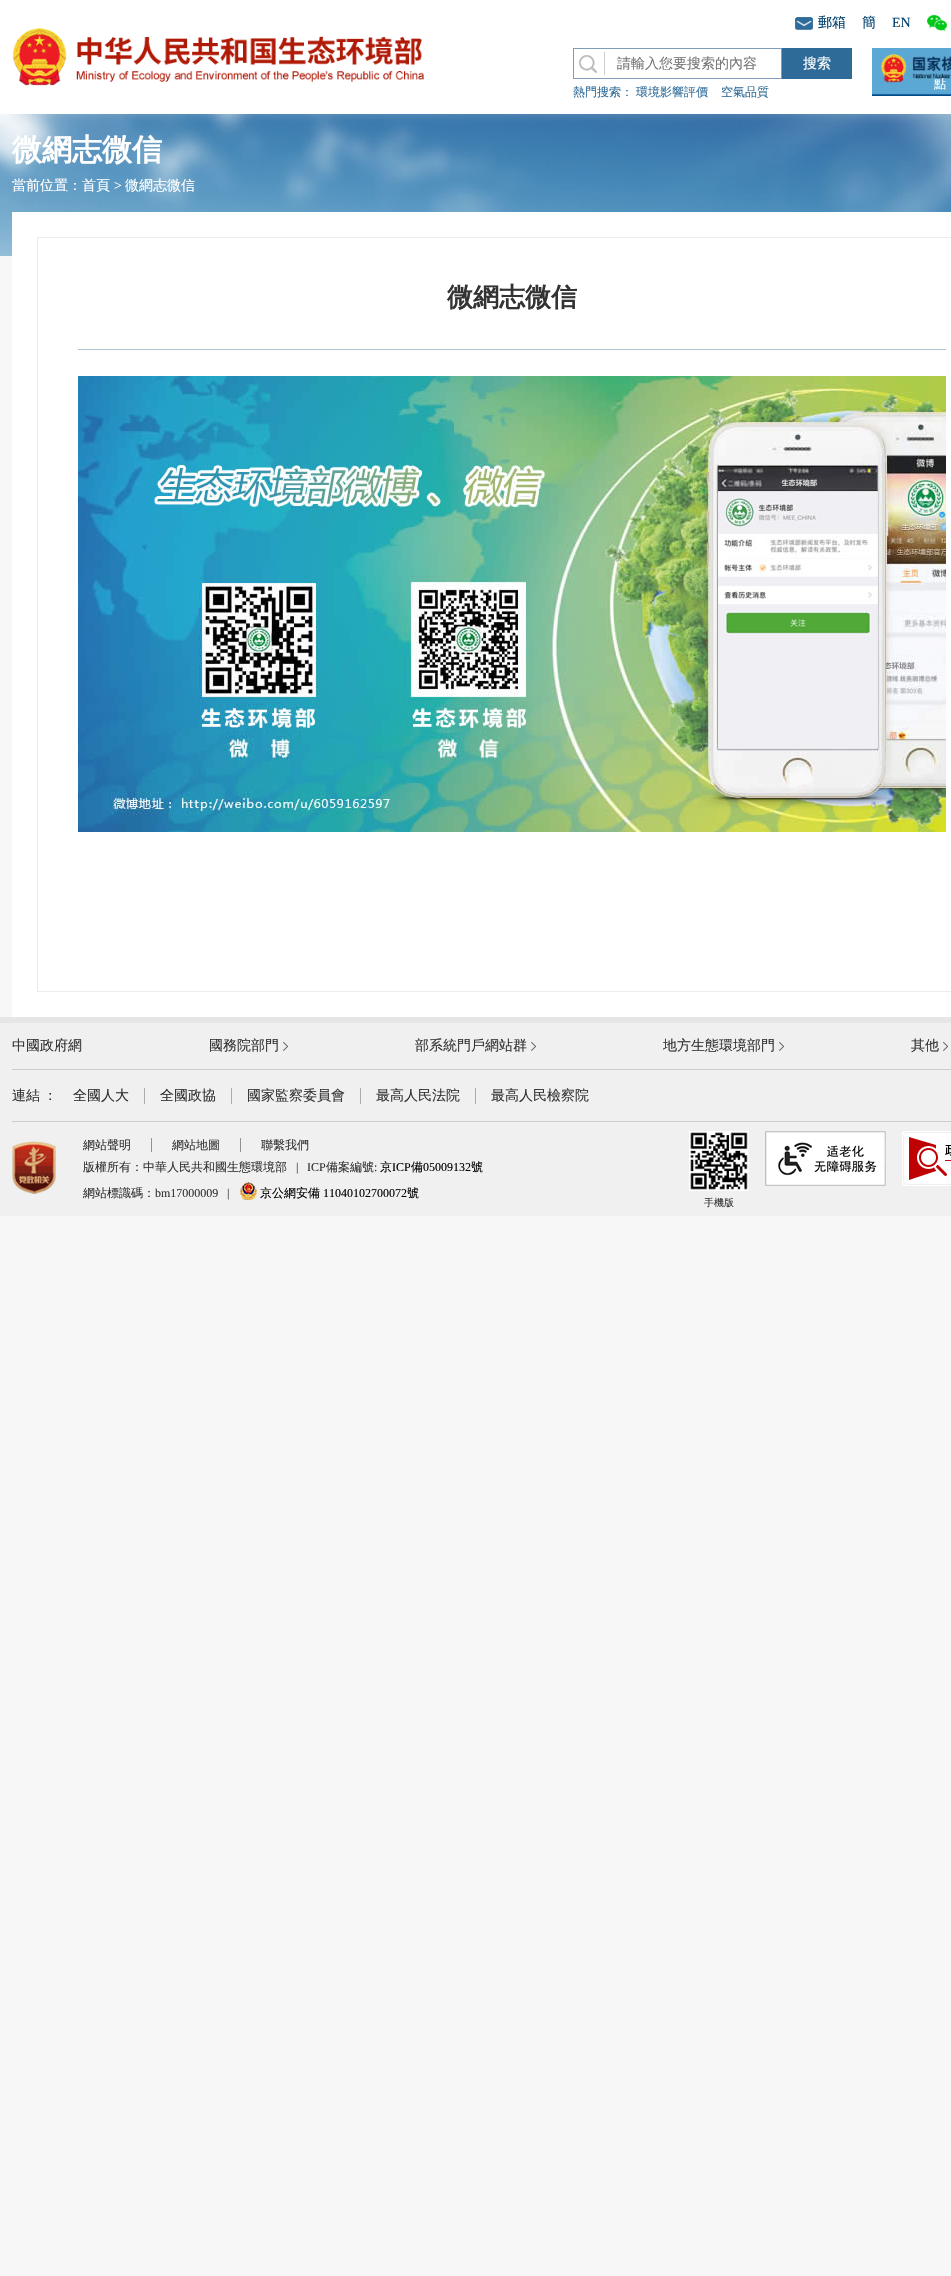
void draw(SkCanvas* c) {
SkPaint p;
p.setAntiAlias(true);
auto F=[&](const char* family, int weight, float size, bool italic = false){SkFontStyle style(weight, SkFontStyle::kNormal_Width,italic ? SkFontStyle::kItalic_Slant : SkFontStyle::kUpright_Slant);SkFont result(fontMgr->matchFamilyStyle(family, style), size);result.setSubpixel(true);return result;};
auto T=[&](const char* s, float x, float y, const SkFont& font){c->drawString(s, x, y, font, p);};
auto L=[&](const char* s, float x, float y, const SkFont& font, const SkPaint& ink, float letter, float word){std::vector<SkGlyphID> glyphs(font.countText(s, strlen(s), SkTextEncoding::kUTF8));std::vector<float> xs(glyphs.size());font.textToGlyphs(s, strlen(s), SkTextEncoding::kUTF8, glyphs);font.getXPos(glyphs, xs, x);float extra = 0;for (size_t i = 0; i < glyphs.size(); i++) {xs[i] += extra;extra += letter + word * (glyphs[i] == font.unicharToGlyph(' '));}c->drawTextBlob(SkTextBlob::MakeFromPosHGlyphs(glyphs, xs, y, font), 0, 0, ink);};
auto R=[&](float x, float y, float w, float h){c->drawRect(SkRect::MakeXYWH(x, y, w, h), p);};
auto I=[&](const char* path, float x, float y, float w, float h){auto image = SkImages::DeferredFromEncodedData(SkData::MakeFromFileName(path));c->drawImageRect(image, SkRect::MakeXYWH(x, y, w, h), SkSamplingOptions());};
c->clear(0xfff7f7f7);
p.setColor(0xffffffff);
R(0,0,951,114);
I("1.png",795,17,18,13);
auto f1 = F("WenQuanYi Zen Hei",500,14);
p.setColor(0xff00406c);
T("郵箱",818,27,f1);
T("簡",862,27,f1);
auto f2 = F("Liberation Serif",400,14);
T("EN",892,27,f2);
I("2.png",927,15,20,16);
I("3.png",12,28,412,58);
p.setStroke(true);
p.setStrokeWidth(1);
p.setColor(0xff7e9db9);
c->drawRect(SkRect::MakeXYWH(573.5,48.5,208,30),p);
I("4.png",579,55,18,18);
p.setStroke(false);
p.setColor(0xffcccccc);
R(604,52,1,23);
p.setColor(0xff757575);
T("請輸入您要搜索的內容",617,68,f1);
p.setColor(0xff2f6b98);
R(782,48,70,31);
p.setColor(0xffffffff);
T("搜索",803,68,f1);
auto f3 = F("WenQuanYi Zen Hei",500,12);
p.setColor(0xff2f6b98);
T("熱門搜索：",573,96,f3);
T("環境影響評價",636,96,f3);
T("空氣品質",721,96,f3);
I("5.png",872,48,79,48);
p.setColor(0xffffffff);
T("點",934,88,f3);
I("6.png",0,114,951,142);
auto f4 = F("WenQuanYi Zen Hei",700,30);
T("微網志微信",12,160,f4);
T("當前位置：首頁",12,190,f1);
T(">",114,190,f2);
T("微網志微信",125,190,f1);
R(12,212,939,805);
p.setStroke(true);
p.setColor(0xffececec);
c->drawRect(SkRect::MakeXYWH(37.5,237.5,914,754),p);
auto f5 = F("WenQuanYi Zen Hei",700,26);
p.setStroke(false);
p.setColor(0xff333333);
T("微網志微信",447,306,f5);
p.setColor(0xffafc4d1);
R(78,349,868,1);
I("7.png",78,376,868,456);
p.setColor(0xfff0f0f0);
R(0,1023,951,193);
p.setColor(0xffe6e6e6);
R(0,1017,951,6);
p.setColor(0xffcccccc);
R(12,1069,939,1);
p.setColor(0xff333333);
T("中國政府網",12,1050,f1);
T("國務院部門",209,1050,f1);
I("8.png",283,1042,5,9);
T("部系統門戶網站群",415,1050,f1);
I("8.png",531,1042,5,9);
T("地方生態環境部門",663,1050,f1);
I("8.png",779,1042,5,9);
T("其他",911,1050,f1);
I("8.png",943,1042,5,9);
p.setColor(0xffcccccc);
R(12,1121,939,1);
p.setColor(0xff333333);
L("連結 ：",12,1100,f1,p,0,-1);
p.setColor(0xffacacac);
R(144,1088,1,16);
p.setColor(0xff333333);
T("全國人大",73,1100,f1);
p.setColor(0xffacacac);
R(231,1088,1,16);
p.setColor(0xff333333);
T("全國政協",160,1100,f1);
p.setColor(0xffacacac);
R(360,1088,1,16);
p.setColor(0xff333333);
T("國家監察委員會",247,1100,f1);
p.setColor(0xffacacac);
R(475,1088,1,16);
p.setColor(0xff333333);
T("最高人民法院",376,1100,f1);
T("最高人民檢察院",491,1100,f1);
I("9.png",12,1141,44,53);
p.setColor(0xff929292);
R(151,1138,1,14);
p.setColor(0xff333333);
T("網站聲明",83,1149,f3);
p.setColor(0xff929292);
R(240,1138,1,14);
p.setColor(0xff333333);
T("網站地圖",172,1149,f3);
T("聯繫我們",261,1149,f3);
T("版權所有：中華人民共和國生態環境部",83,1171,f3);
auto f6 = F("Liberation Serif",400,12);
T("|",296,1171,f6);
T("ICP",307,1171,f6);
T("備案編號",326,1171,f3);
T(":",374,1171,f6);
p.setColor(0xff000000);
T("京",380,1171,f3);
T("ICP",392,1171,f6);
T("備",411,1171,f3);
T("05009132",423,1171,f6);
T("號",471,1171,f3);
p.setColor(0xff333333);
T("網站標識碼：",83,1197,f3);
T("bm17000009",155,1197,f6);
T("|",227,1197,f6);
I("10.png",240,1182,17,18);
p.setColor(0xff000000);
T("京公網安備",260,1197,f3);
T("11040102700072",323,1197,f6);
T("號",407,1197,f3);
I("11.png",765,1131,121,55);
I("12.png",902,1131,49,55);
I("13.png",689,1131,60,60);
auto f7 = F("WenQuanYi Zen Hei",500,10);
p.setColor(0xff333333);
T("手機版",704,1206,f7);
}
